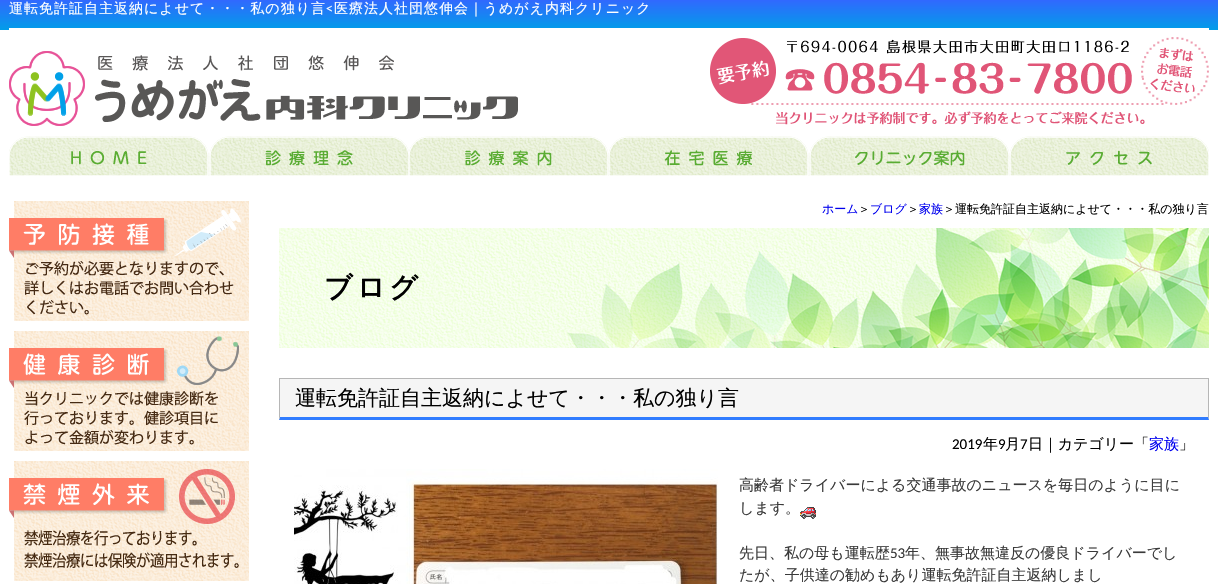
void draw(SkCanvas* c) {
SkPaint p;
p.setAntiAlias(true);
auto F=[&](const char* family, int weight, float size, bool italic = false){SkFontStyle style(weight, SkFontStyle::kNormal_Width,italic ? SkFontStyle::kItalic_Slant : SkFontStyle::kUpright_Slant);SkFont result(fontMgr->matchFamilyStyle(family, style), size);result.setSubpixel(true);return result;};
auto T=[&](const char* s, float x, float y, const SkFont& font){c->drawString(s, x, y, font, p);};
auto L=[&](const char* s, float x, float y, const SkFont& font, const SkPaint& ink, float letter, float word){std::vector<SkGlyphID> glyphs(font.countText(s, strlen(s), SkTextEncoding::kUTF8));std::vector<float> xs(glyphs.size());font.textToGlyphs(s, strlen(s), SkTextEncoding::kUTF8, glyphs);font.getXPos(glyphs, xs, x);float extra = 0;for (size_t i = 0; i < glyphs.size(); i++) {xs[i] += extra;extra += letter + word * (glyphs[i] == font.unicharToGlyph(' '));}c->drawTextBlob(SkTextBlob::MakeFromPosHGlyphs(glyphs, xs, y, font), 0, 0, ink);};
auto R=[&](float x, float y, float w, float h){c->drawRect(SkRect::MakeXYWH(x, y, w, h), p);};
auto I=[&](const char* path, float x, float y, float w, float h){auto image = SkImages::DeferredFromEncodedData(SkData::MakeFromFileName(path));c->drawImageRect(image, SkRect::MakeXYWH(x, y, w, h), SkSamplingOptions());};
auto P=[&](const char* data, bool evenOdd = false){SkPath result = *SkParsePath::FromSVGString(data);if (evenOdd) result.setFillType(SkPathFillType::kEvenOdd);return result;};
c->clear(0xffffffff);
I("1.png",0,0,1218,30);
auto f1 = F("WenQuanYi Zen Hei",500,14);
p.setColor(0xffffffff);
L("運転免許証自主返納によせて・・・私の独り言",9,13,f1,p,1,0);
auto f2 = F("Carlito",400,14);
L("<",326,13,f2,p,1,0);
L("医療法人社団悠伸会｜うめがえ内科クリニック",334,13,f1,p,1,0);
I("2.png",9,28,1200,98);
I("3.png",9,136,200,40);
I("4.png",209,136,200,40);
I("5.png",409,136,200,40);
I("6.png",609,136,200,40);
I("7.png",809,136,200,40);
I("8.png",1009,136,200,40);
I("9.png",9,201,240,120);
I("10.png",9,331,240,120);
I("11.png",9,461,240,120);
auto f3 = F("WenQuanYi Zen Hei",500,12);
p.setColor(0xff0000ee);
T("ホーム",822,213,f3);
p.setColor(0xff000000);
T("＞",858,213,f3);
p.setColor(0xff0000ee);
T("ブログ",870,213,f3);
p.setColor(0xff000000);
T("＞",907,213,f3);
p.setColor(0xff0000ee);
T("家族",919,213,f3);
p.setColor(0xff000000);
T("＞運転免許証自主返納によせて・・・私の独り言",943,213,f3);
I("12.png",279,228,930,120);
auto f4 = F("WenQuanYi Zen Hei",700,28);
L("ブログ",324,297,f4,p,4,0);
p.setColor(0xfff5f5f5);
R(280,379,928,38);
p.setColor(0xffb6b6b6);
R(279,378,930,1);
c->drawPath(P("M1209 378v42l-1-3v-38z"),p);
p.setColor(0xff307cff);
c->drawPath(P("M1209 420h-930l1-3h928z"),p);
p.setColor(0xffb6b6b6);
c->drawPath(P("M279 420v-42l1 1v38z"),p);
auto f5 = F("WenQuanYi Zen Hei",500,21);
p.setColor(0xff000000);
T("運転免許証自主返納によせて・・・私の独り言",295,405,f5);
auto f6 = F("Carlito",400,15);
T("2019",952,449,f6);
auto f7 = F("WenQuanYi Zen Hei",500,15);
T("年",983,449,f7);
T("9",998,449,f6);
T("月",1005,449,f7);
T("7",1020,449,f6);
T("日｜カテゴリー「",1028,449,f7);
p.setColor(0xff0000ee);
T("家族",1149,449,f7);
p.setColor(0xff000000);
T("」",1179,449,f7);
I("13.png",294,469,426,115);
p.setColor(0xff3a3a3a);
T("高齢者ドライバーによる交通事故のニュースを毎日のように目に",739,490,f7);
T("します。",739,513,f7);
I("14.png",800,507,16,12);
T("先日、私の母も運転歴",739,558,f7);
T("53",890,558,f6);
T("年、無事故無違反の優良ドライバーでし",905,558,f7);
T("たが、子供達の勧めもあり運転免許証自主返納しまし",739,580,f7);
}
